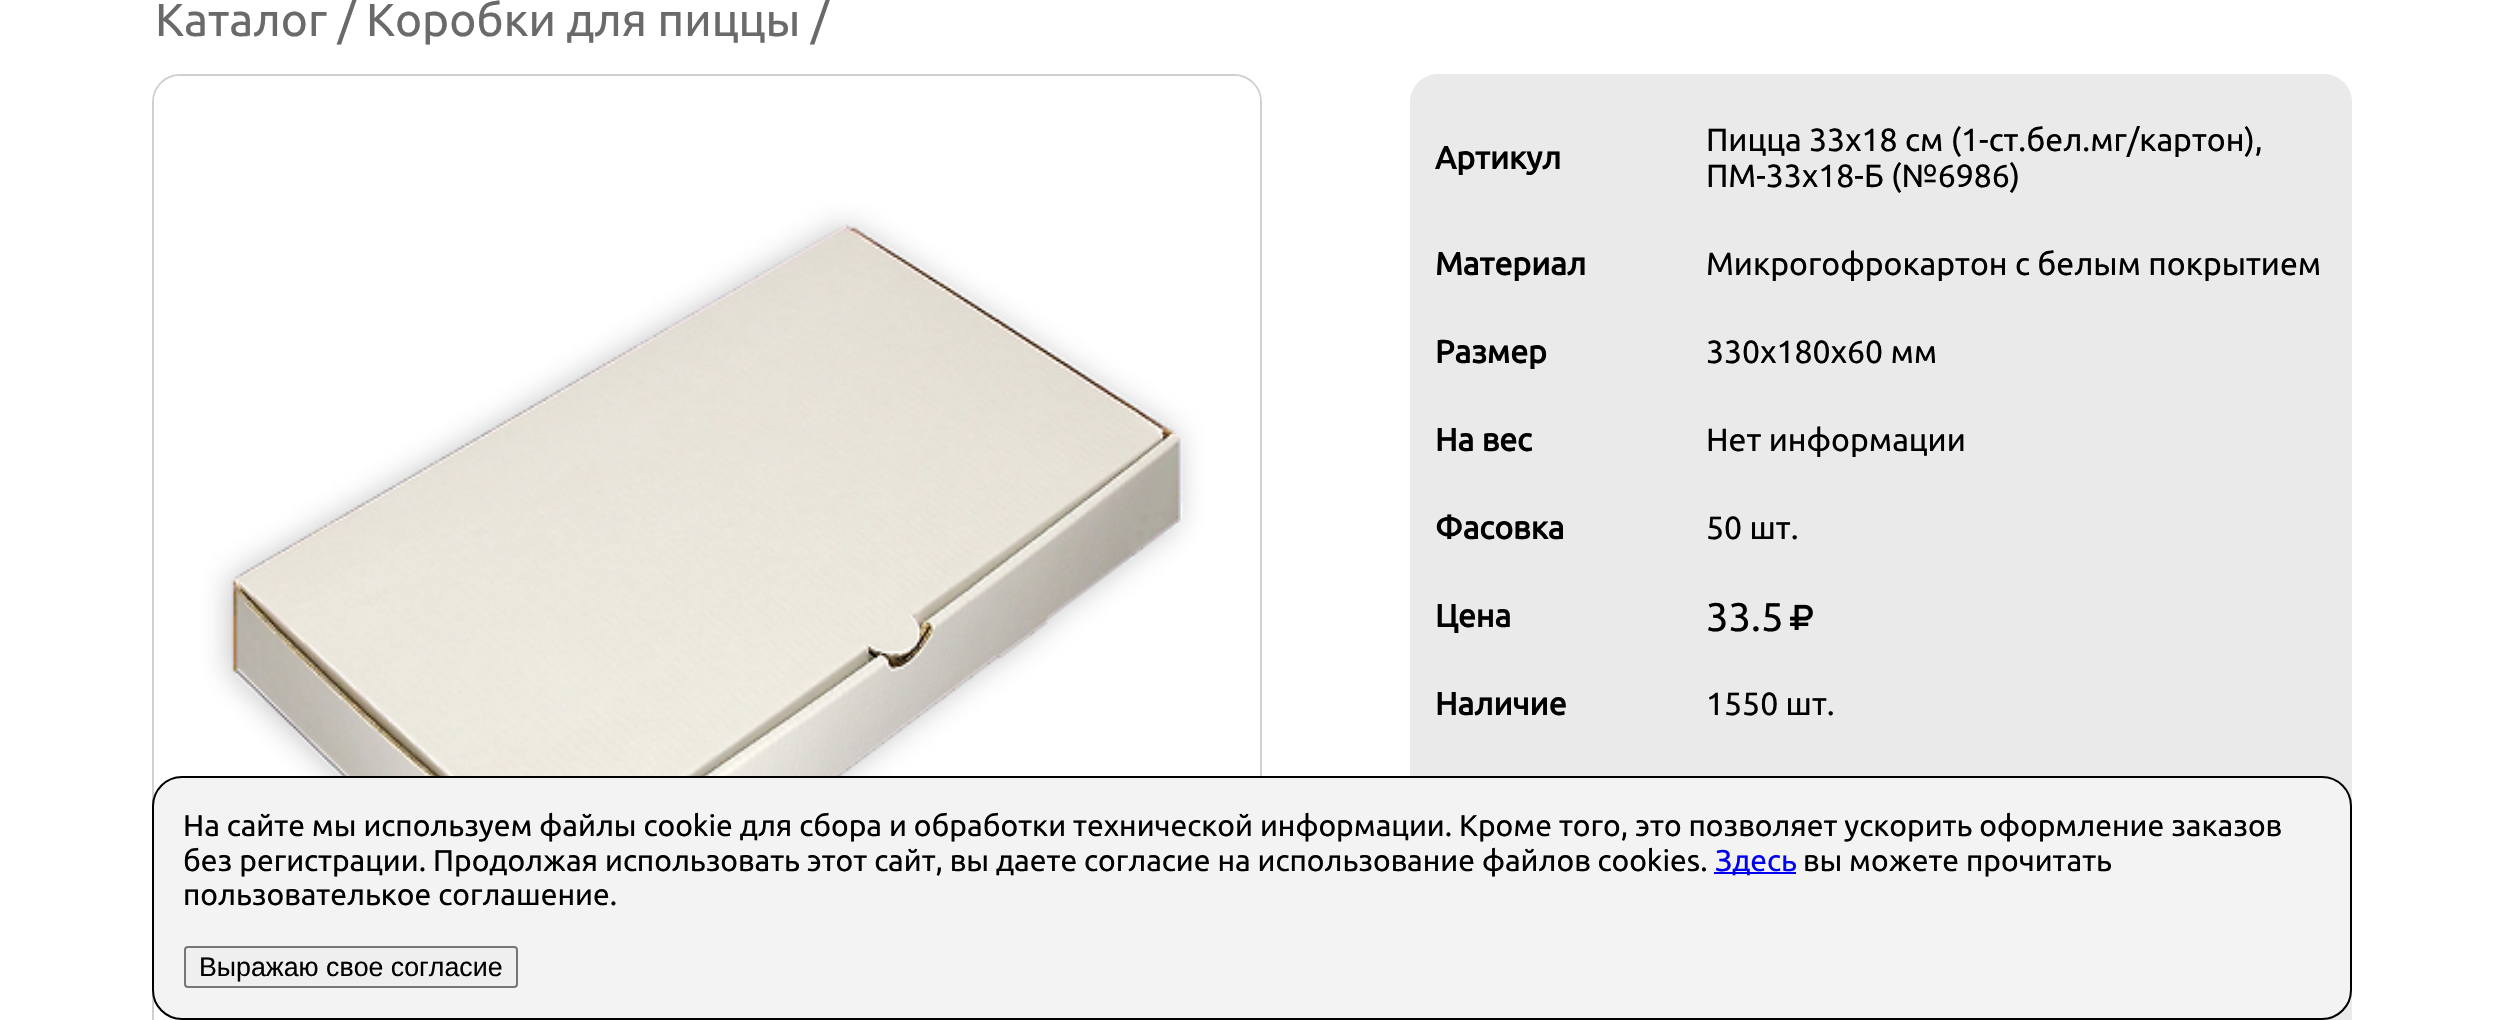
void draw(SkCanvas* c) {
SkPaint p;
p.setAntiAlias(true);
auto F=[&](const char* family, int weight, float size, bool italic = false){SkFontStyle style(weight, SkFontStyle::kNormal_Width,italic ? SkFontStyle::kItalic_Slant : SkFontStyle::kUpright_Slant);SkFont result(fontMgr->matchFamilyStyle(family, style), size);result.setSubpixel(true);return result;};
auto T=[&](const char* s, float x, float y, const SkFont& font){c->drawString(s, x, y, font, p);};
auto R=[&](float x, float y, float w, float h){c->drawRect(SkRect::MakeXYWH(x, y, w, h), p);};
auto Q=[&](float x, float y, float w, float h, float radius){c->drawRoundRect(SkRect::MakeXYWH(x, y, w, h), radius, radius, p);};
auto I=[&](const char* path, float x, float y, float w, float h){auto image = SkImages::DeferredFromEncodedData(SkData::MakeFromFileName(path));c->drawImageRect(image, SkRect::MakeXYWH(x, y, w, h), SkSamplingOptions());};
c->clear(0xffffffff);
auto f1 = F("Ubuntu",400,46);
p.setColor(0xff6a6a6a);
T("Каталог / Коробки для пиццы /",155,36,f1);
p.setStroke(true);
p.setStrokeWidth(2);
p.setColor(0xffd0d0d0);
c->drawRoundRect(SkRect::MakeXYWH(153,75,1108,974),27,27,p);
I("1.png",154,76,1106,927);
p.setStroke(false);
p.setColor(0xffeaeaea);
Q(1410,74,942,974,28);
auto f2 = F("Ubuntu",700,32);
p.setColor(0xff000000);
T("Артикул",1435,169,f2);
auto f3 = F("Ubuntu",400,32);
T("Пицца 33х18 см (1-ст.бел.мг/картон),",1706,151,f3);
T("ПМ-33х18-Б (№6986)",1706,187,f3);
T("Материал",1435,275,f2);
T("Микрогофрокартон с белым покрытием",1706,275,f3);
T("Размер",1435,363,f2);
T("330х180х60 мм",1706,363,f3);
T("На вес",1435,451,f2);
T("Нет информации",1706,451,f3);
T("Фасовка",1435,539,f2);
T("50 шт.",1706,539,f3);
T("Цена",1435,627,f2);
auto f4 = F("Ubuntu",400,40);
T("33.5",1706,631,f4);
I("2.png",1790,604,23,26);
T("Наличие",1435,715,f2);
T("1550 шт.",1706,715,f3);
p.setColor(0xffd8d8d8);
R(2322,1018,10,2);
p.setColor(0xfff3f3f3);
c->drawRoundRect(SkRect::MakeXYWH(153,777,2198,242),29,29,p);
p.setStroke(true);
p.setColor(0xff000000);
c->drawRoundRect(SkRect::MakeXYWH(153,777,2198,242),29,29,p);
auto f5 = F("Ubuntu",400,30);
p.setStroke(false);
T("На сайте мы используем файлы cookie для сбора и обработки технической информации. Кроме того, это позволяет ускорить оформление заказов",183,836,f5);
T("без регистрации. Продолжая использовать этот сайт, вы даете согласие на использование файлов cookies.",183,871,f5);
p.setColor(0xff0000ee);
R(1714,872,82,2);
T("Здесь",1715,871,f5);
p.setColor(0xff000000);
T("вы можете прочитать",1803,871,f5);
T("пользователькое соглашение.",183,905,f5);
p.setColor(0xffefefef);
c->drawRoundRect(SkRect::MakeXYWH(185,947,332,40),3,3,p);
p.setStroke(true);
p.setColor(0xff767676);
c->drawRoundRect(SkRect::MakeXYWH(185,947,332,40),3,3,p);
auto f6 = F("Liberation Sans",400,26.75);
p.setStroke(false);
p.setColor(0xff000000);
T("Выражаю свое согласие",199,976,f6);
}
